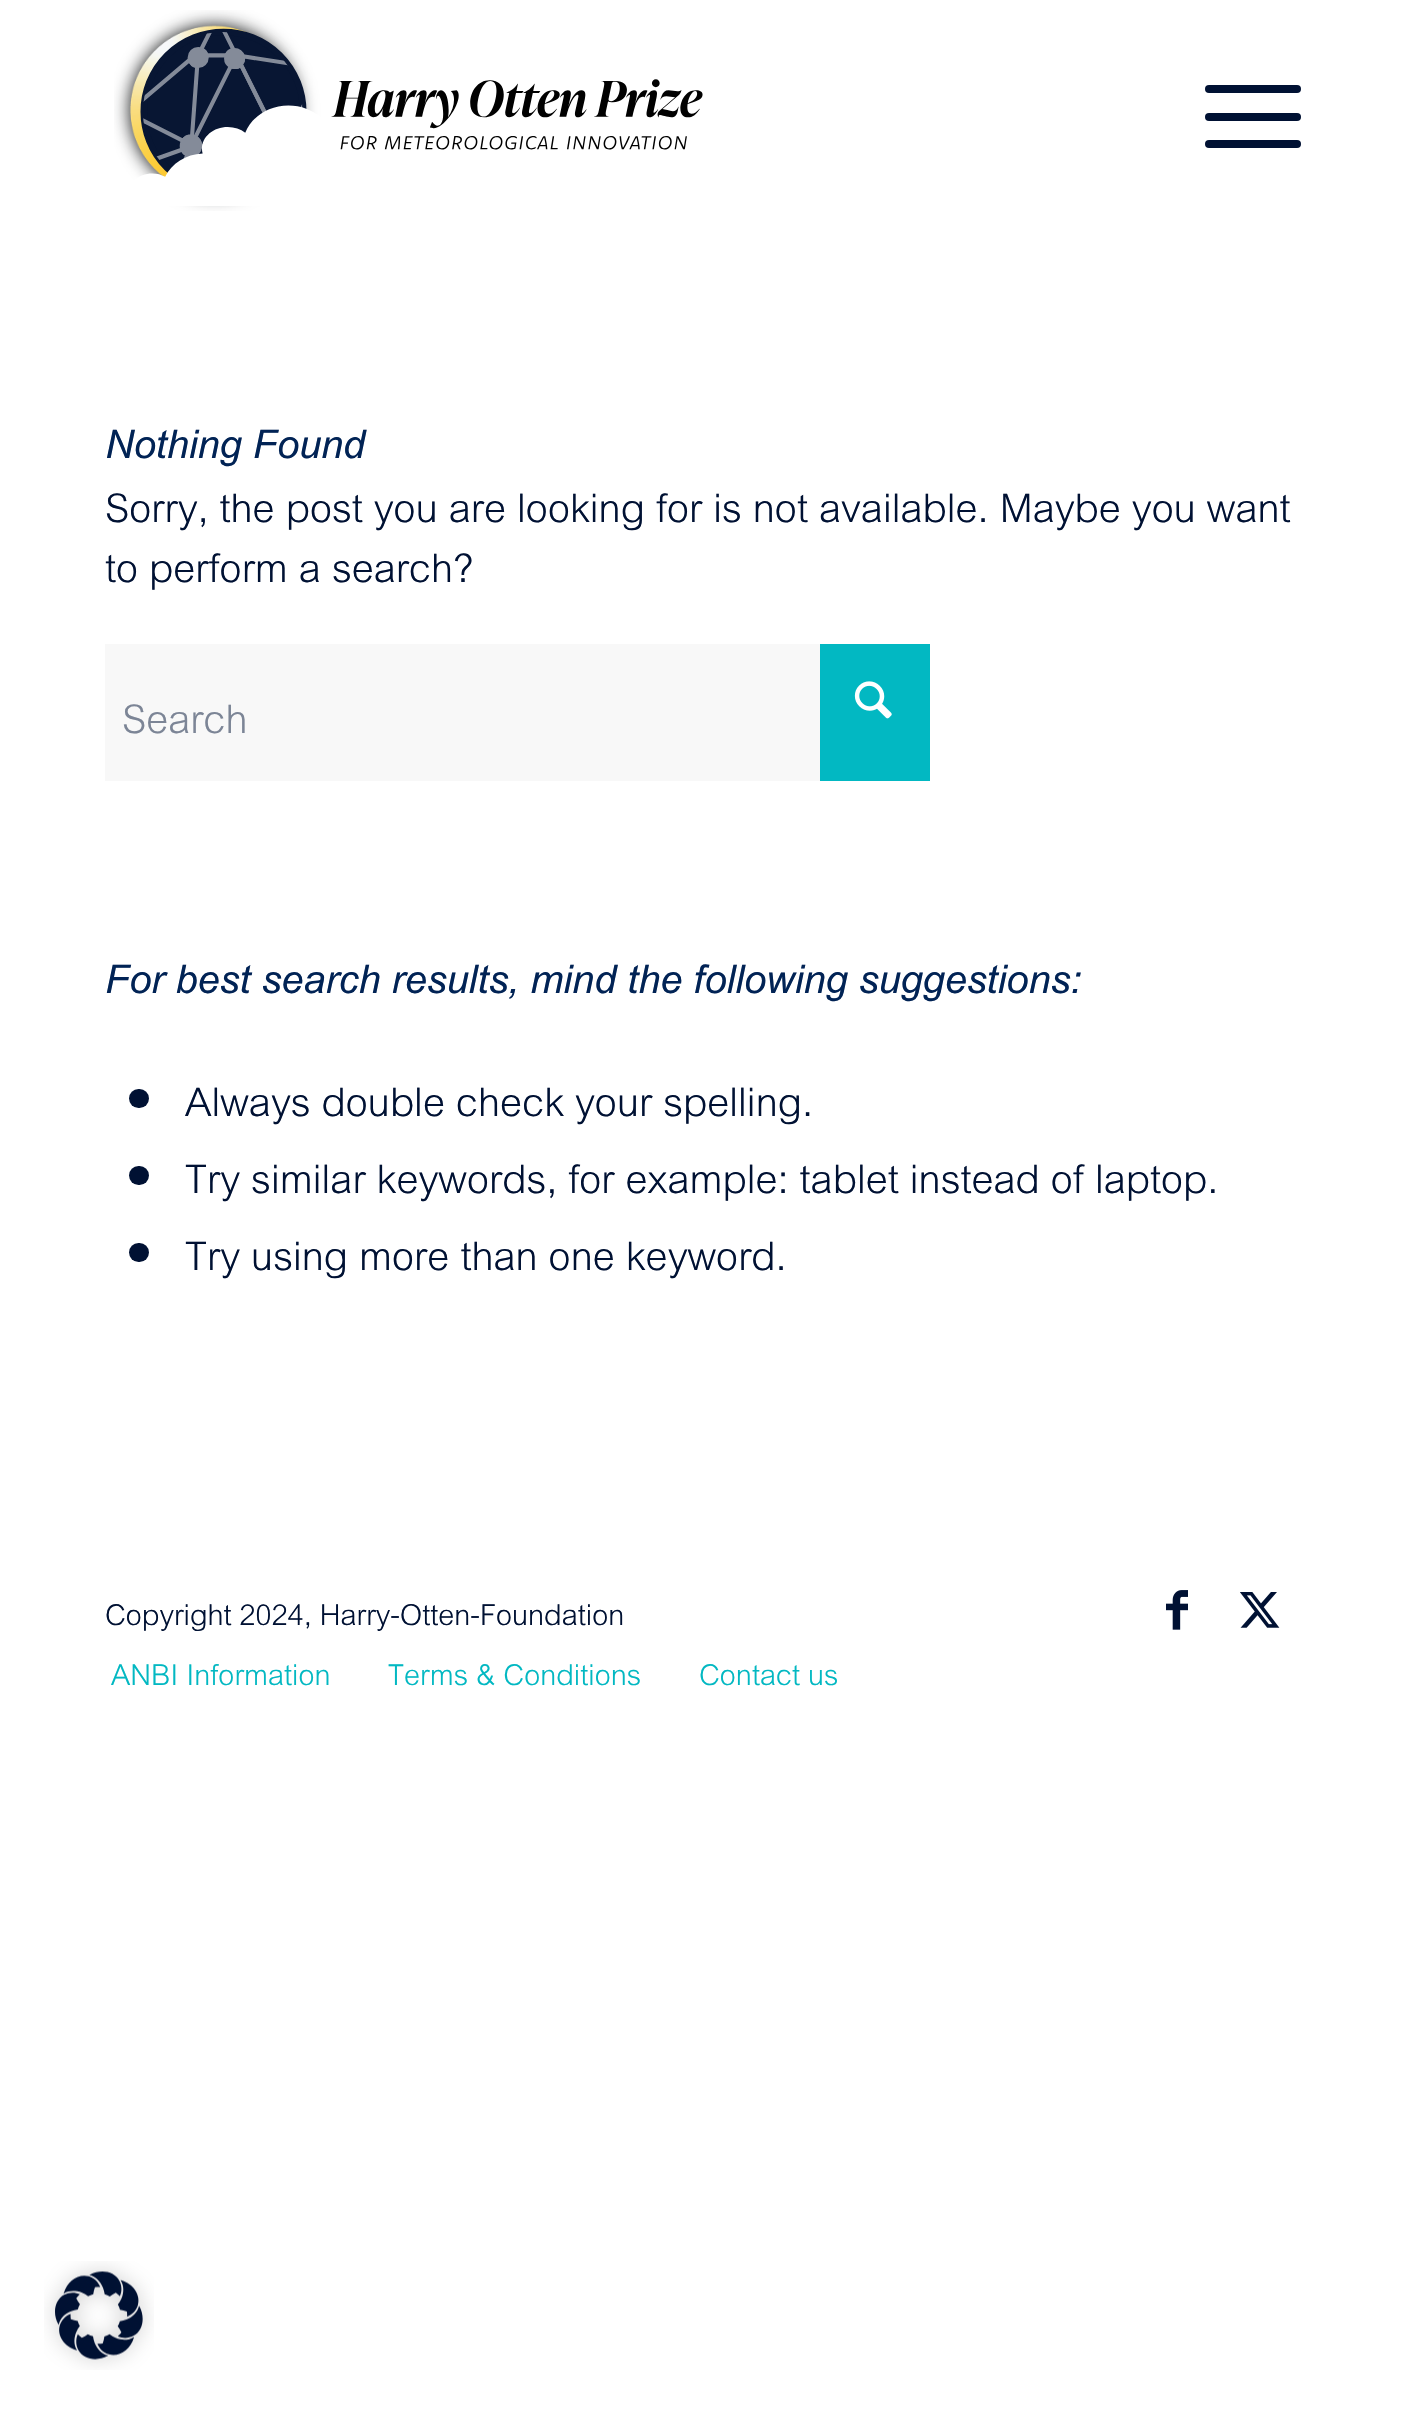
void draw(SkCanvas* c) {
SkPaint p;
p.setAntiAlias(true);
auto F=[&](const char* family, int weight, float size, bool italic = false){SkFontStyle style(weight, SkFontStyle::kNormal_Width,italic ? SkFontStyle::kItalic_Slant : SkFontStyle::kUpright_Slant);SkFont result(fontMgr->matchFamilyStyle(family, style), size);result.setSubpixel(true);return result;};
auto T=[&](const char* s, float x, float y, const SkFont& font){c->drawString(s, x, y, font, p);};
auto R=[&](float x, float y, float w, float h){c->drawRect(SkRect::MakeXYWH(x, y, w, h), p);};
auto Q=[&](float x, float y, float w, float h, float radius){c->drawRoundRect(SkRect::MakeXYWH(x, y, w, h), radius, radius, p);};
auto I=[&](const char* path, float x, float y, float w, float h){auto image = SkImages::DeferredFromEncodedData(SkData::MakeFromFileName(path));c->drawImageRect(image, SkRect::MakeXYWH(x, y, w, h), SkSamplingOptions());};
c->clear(0xffffffff);
I("1.png",114,10,589,201);
p.setColor(0xff001133);
Q(1205,113,96,8,4);
Q(1205,85,96,8,4);
Q(1205,140,96,8,4);
auto f1 = F("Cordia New",700,60.5,true);
p.setColor(0xff012355);
T("Nothing Found",105,458,f1);
auto f2 = F("Cordia New",400,60.5);
p.setColor(0xff001133);
T("Sorry, the post you are looking for is not available. Maybe you want",105,522,f2);
T("to perform a search?",105,582,f2);
p.setColor(0xff02b8c2);
R(820,644,110,137);
p.setColor(0xfff8f8f8);
R(105,644,715,137);
p.setColor(0xff7c8596);
T("Search",122,733,f2);
I("2.png",854,681,38,38);
p.setColor(0xff012355);
T("For best search results, mind the following suggestions:",105,993,f1);
p.setColor(0xff001133);
Q(129,1089,20,19,9.5);
T("Always double check your spelling.",185,1116,f2);
Q(129,1166,20,19,9.5);
T("Try similar keywords, for example: tablet instead of laptop.",185,1193,f2);
Q(129,1243,20,19,9.5);
T("Try using more than one keyword.",185,1270,f2);
auto f3 = F("Cordia New",400,44);
T("Copyright 2024, Harry-Otten-Foundation",105,1625,f3);
I("3.png",1166,1590,22,40);
I("4.png",1240,1592,40,36);
p.setColor(0xff02b8c2);
T("ANBI Information",111,1685,f3);
T("Terms & Conditions",388,1685,f3);
T("Contact us",699,1685,f3);
I("5.png",44,2261,110,109);
}
